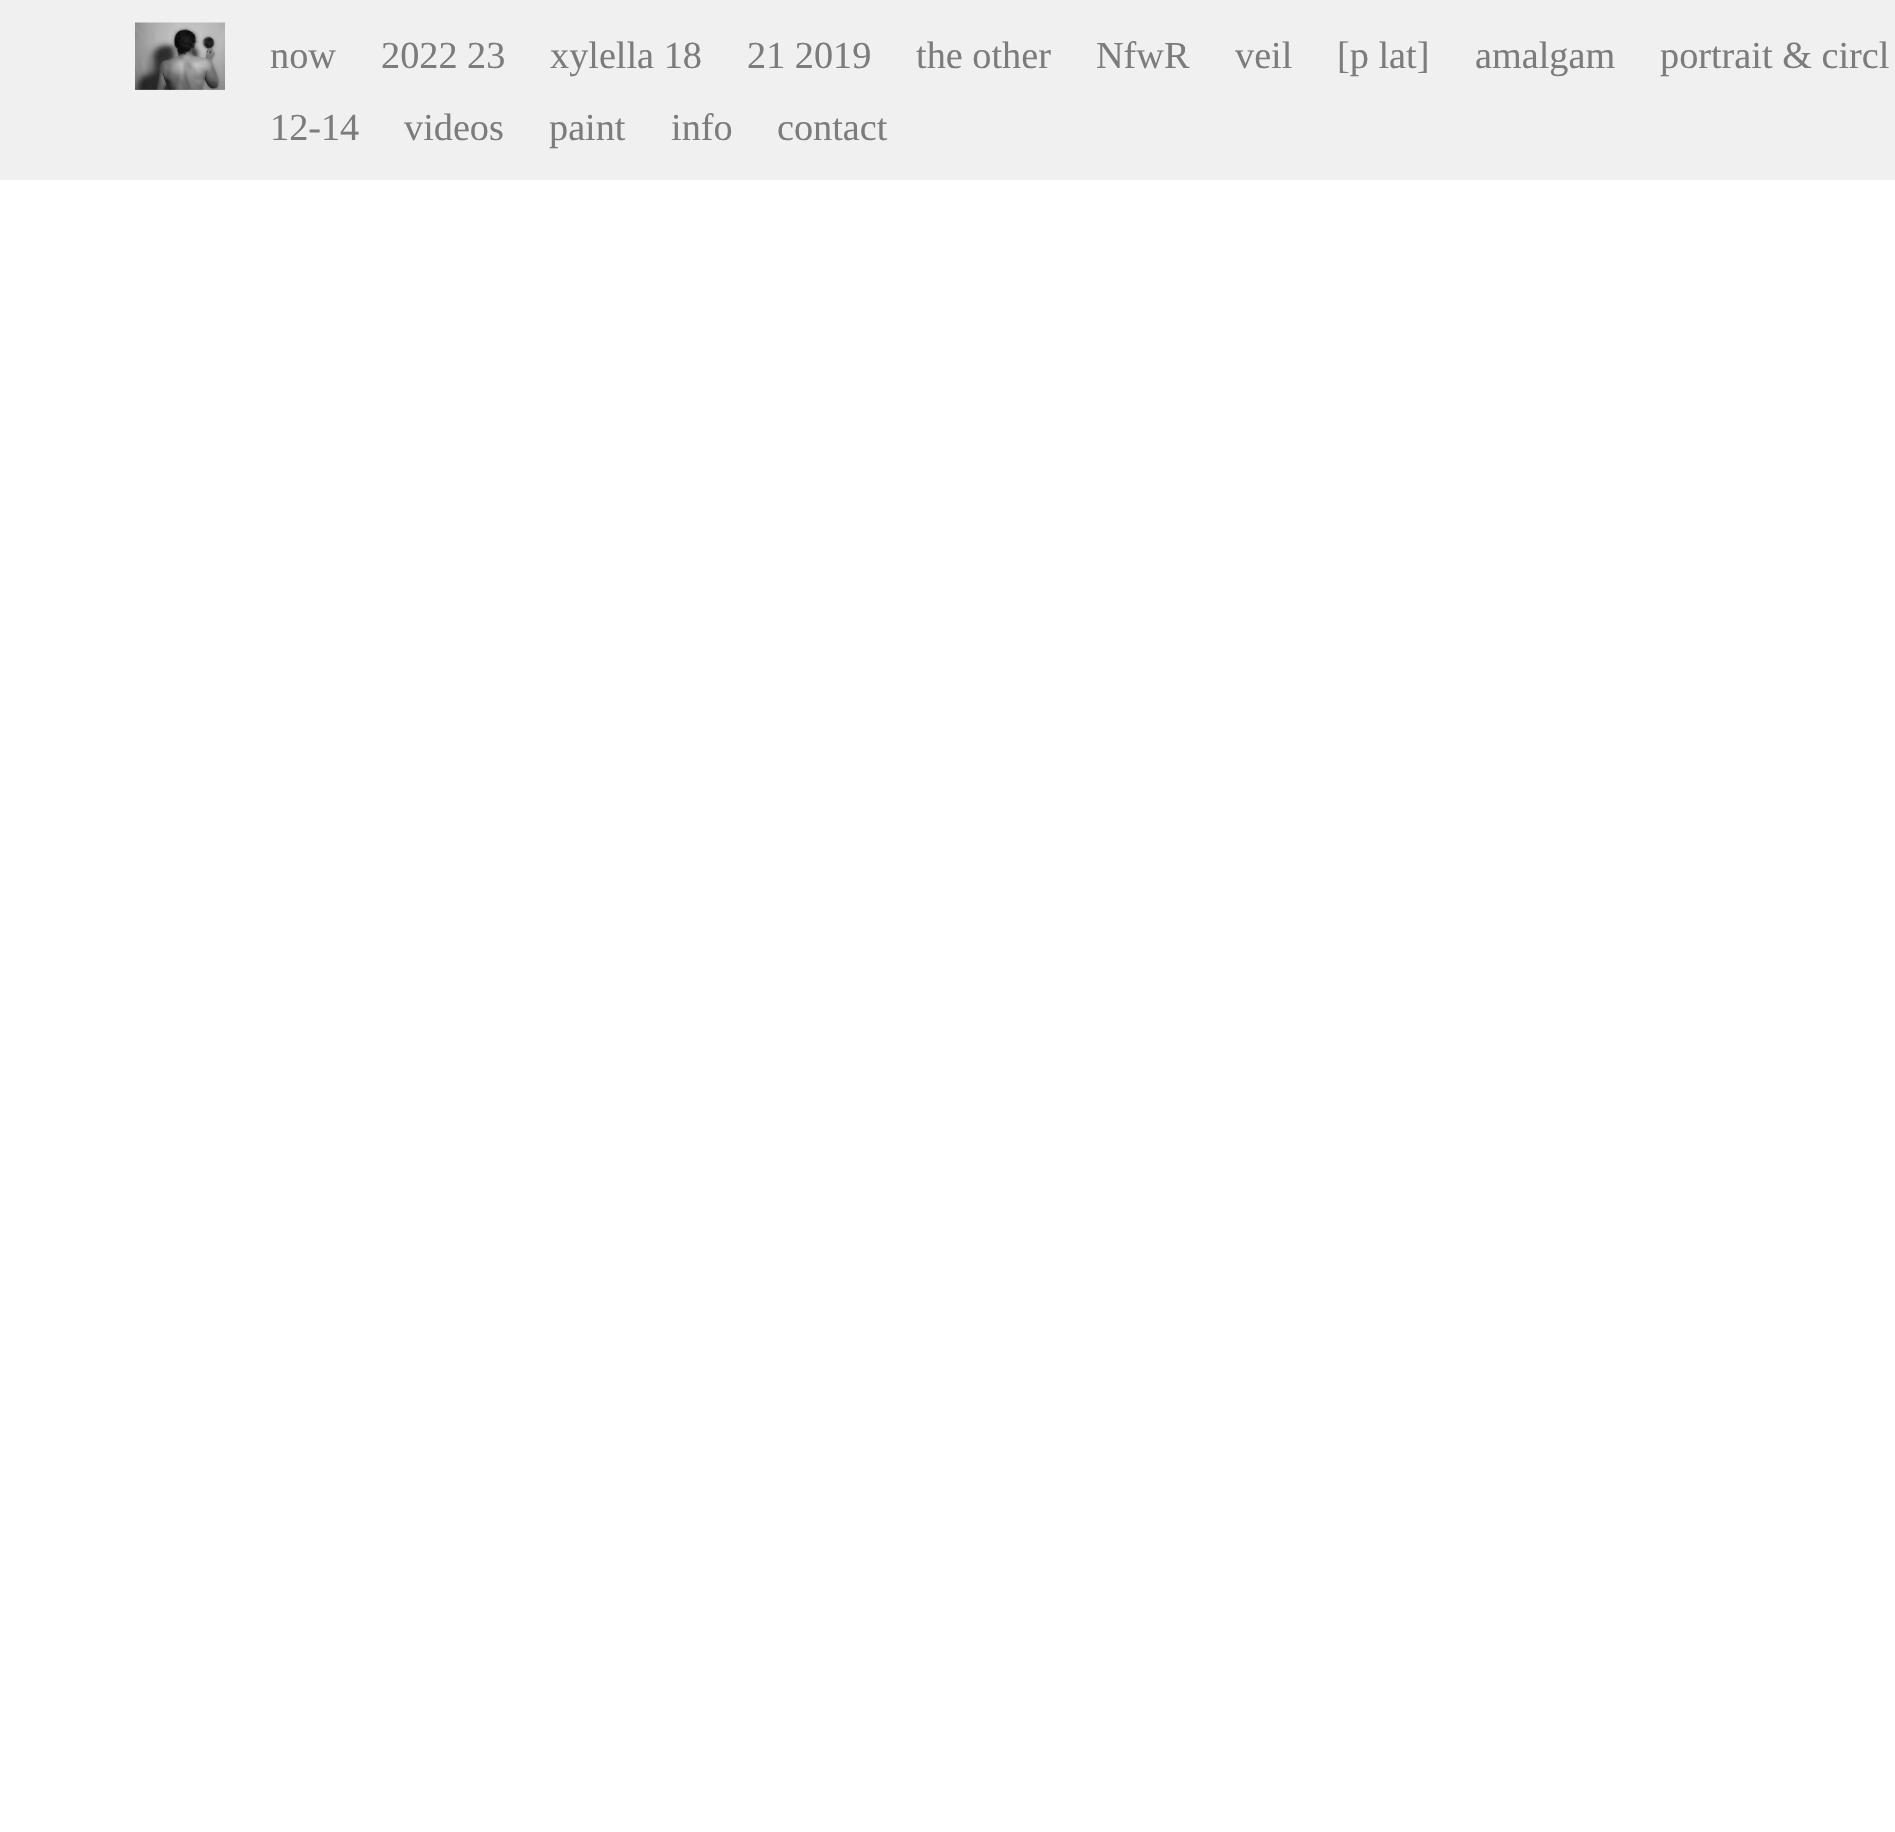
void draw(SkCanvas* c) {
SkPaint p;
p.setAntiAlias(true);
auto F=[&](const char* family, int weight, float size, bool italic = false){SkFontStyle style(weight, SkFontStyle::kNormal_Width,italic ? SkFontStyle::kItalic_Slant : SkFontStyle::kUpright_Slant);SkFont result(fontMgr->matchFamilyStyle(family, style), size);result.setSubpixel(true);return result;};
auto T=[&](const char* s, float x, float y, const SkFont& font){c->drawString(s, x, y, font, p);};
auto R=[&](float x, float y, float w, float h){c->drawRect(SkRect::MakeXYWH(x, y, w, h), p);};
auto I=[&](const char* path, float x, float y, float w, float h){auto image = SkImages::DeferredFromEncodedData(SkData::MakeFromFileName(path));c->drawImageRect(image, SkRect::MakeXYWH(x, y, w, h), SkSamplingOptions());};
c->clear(0xffffffff);
p.setColor(0xfff0f0f0);
R(0,0,1895,180);
I("1.png",135,22,90,68);
auto f1 = F("Liberation Serif",400,38.25);
p.setColor(0xff7d7c7c);
T("now",270,68,f1);
T("2022 23",381,68,f1);
T("xylella 18",550,68,f1);
T("21 2019",747,68,f1);
T("the other",916,68,f1);
T("NfwR",1096,68,f1);
T("veil",1235,68,f1);
T("[p lat]",1337,68,f1);
T("amalgam",1475,68,f1);
T("portrait & circl",1660,68,f1);
T("12-14",270,140,f1);
T("videos",404,140,f1);
T("paint",549,140,f1);
T("info",671,140,f1);
T("contact",777,140,f1);
}
